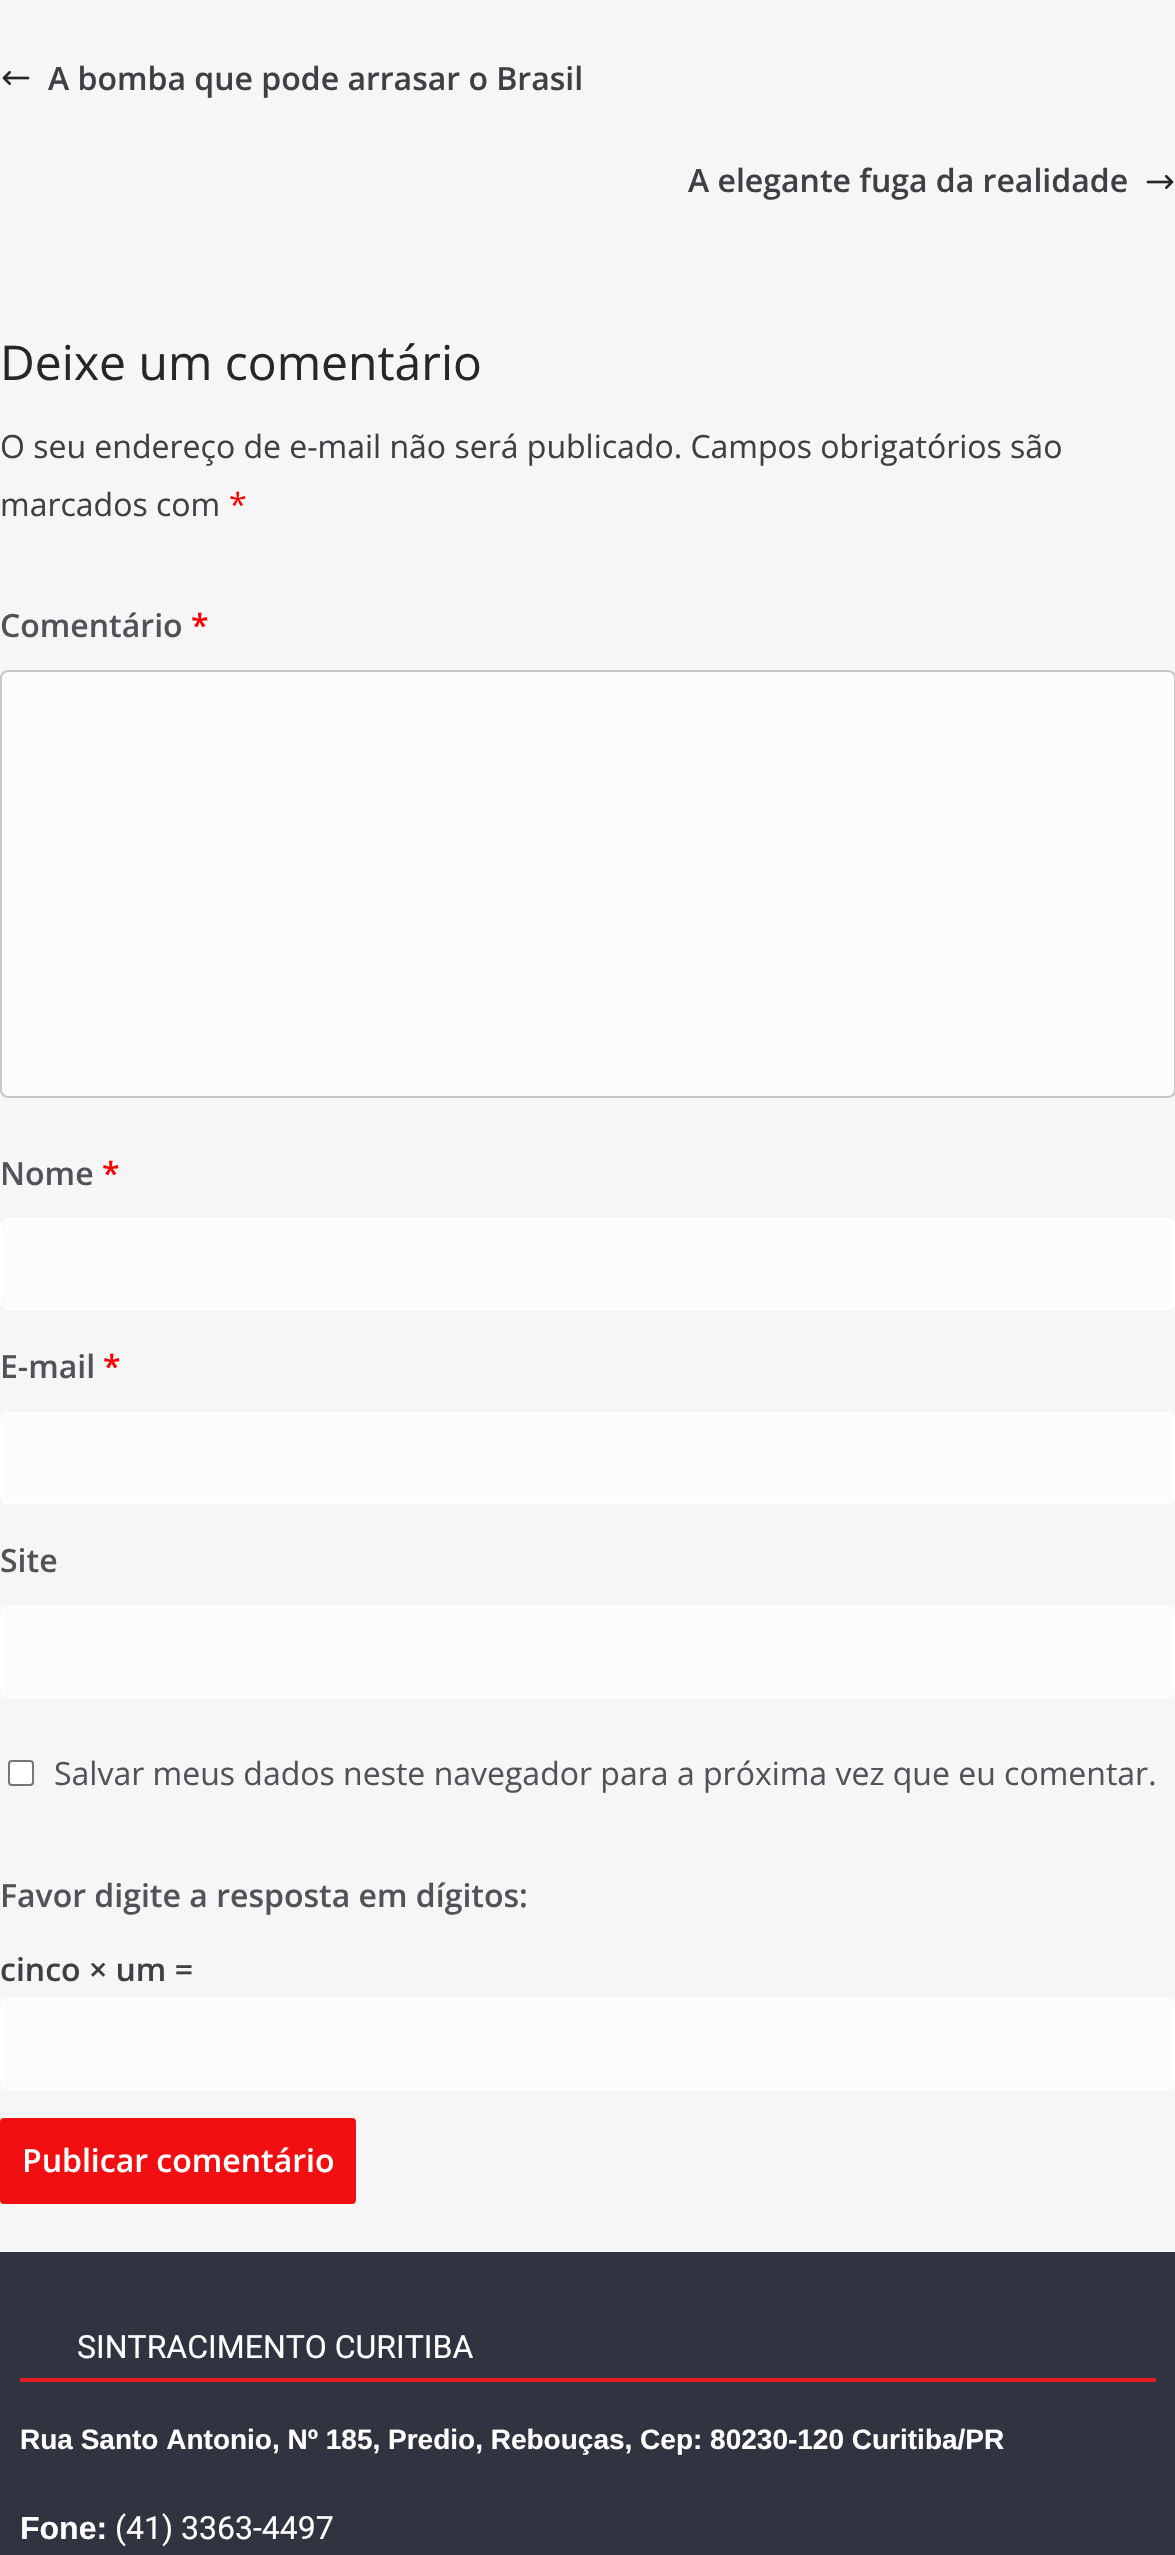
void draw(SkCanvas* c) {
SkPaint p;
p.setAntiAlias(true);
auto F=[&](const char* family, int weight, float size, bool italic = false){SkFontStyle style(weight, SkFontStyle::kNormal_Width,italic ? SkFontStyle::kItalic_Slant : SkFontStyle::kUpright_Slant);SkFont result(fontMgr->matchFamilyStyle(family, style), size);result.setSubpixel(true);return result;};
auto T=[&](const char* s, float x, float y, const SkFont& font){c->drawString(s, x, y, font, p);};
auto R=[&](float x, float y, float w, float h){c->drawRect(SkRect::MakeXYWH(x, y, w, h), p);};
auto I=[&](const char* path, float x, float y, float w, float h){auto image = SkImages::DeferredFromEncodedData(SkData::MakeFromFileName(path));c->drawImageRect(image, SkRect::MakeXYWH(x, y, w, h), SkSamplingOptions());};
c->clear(0xfff6f6f6);
I("1.png",2,71,28,14);
auto f1 = F("Open Sans",600,32);
p.setColor(0xff3f3f46);
T("A bomba que pode arrasar o Brasil",48,90,f1);
T("A elegante fuga da realidade",688,192,f1);
I("2.png",1146,175,28,14);
auto f2 = F("Open Sans",400,48);
p.setColor(0xff27272a);
T("Deixe um comentário",0,380,f2);
auto f3 = F("Open Sans",400,32);
p.setColor(0xff3f3f46);
T("O seu endereço de e-mail não será publicado. Campos obrigatórios são",0,458,f3);
T("marcados com",0,516,f3);
p.setColor(0xffff0000);
T("*",229,516,f3);
p.setColor(0xff52525b);
T("Comentário",0,637,f1);
p.setColor(0xffff0000);
T("*",191,637,f1);
p.setColor(0xfffcfcfc);
c->drawRoundRect(SkRect::MakeXYWH(1,671,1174,426),7,7,p);
p.setStroke(true);
p.setStrokeWidth(2);
p.setColor(0xffc7c7c7);
c->drawRoundRect(SkRect::MakeXYWH(1,671,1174,426),7,7,p);
p.setStroke(false);
p.setColor(0xff52525b);
T("Nome",0,1185,f1);
p.setColor(0xffff0000);
T("*",102,1185,f1);
p.setColor(0xfffcfcfc);
c->drawRoundRect(SkRect::MakeXYWH(1,1219,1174,90),7,7,p);
p.setStroke(true);
p.setColor(0xffffffff);
c->drawRoundRect(SkRect::MakeXYWH(1,1219,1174,90),7,7,p);
p.setStroke(false);
p.setColor(0xff52525b);
T("E-mail",0,1378,f1);
p.setColor(0xffff0000);
T("*",103,1378,f1);
p.setColor(0xfffcfcfc);
c->drawRoundRect(SkRect::MakeXYWH(1,1413,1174,90),7,7,p);
p.setStroke(true);
p.setColor(0xffffffff);
c->drawRoundRect(SkRect::MakeXYWH(1,1413,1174,90),7,7,p);
p.setStroke(false);
p.setColor(0xff52525b);
T("Site",0,1572,f1);
p.setColor(0xfffcfcfc);
c->drawRoundRect(SkRect::MakeXYWH(1,1607,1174,90),7,7,p);
p.setStroke(true);
p.setColor(0xffffffff);
c->drawRoundRect(SkRect::MakeXYWH(1,1607,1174,90),7,7,p);
p.setStroke(false);
c->drawRoundRect(SkRect::MakeXYWH(9,1761,24,24),3,3,p);
p.setStroke(true);
p.setColor(0xff767676);
c->drawRoundRect(SkRect::MakeXYWH(9,1761,24,24),3,3,p);
p.setStroke(false);
p.setColor(0xff52525b);
T("Salvar meus dados neste navegador para a próxima vez que eu comentar.",54,1785,f3);
T("Favor digite a resposta em dígitos:",0,1907,f1);
p.setColor(0xff3f3f46);
T("cinco × um =",0,1981,f1);
p.setColor(0xfffcfcfc);
c->drawRoundRect(SkRect::MakeXYWH(1,1999,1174,90),7,7,p);
p.setStroke(true);
p.setColor(0xffffffff);
c->drawRoundRect(SkRect::MakeXYWH(1,1999,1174,90),7,7,p);
p.setStroke(false);
p.setColor(0xfff10f11);
c->drawRoundRect(SkRect::MakeXYWH(1,2119,354,84),3,3,p);
p.setStroke(true);
c->drawRoundRect(SkRect::MakeXYWH(1,2119,354,84),3,3,p);
p.setStroke(false);
p.setColor(0xffffffff);
T("Publicar comentário",22,2172,f1);
p.setColor(0xff303440);
R(0,2252,1175,303);
p.setColor(0xffe61d25);
R(20,2378,1136,4);
auto f4 = F("Roboto",400,32);
p.setColor(0xffffffff);
T("SINTRACIMENTO CURITIBA",77,2358,f4);
auto f5 = F("Liberation Sans",700,28);
T("Rua Santo Antonio, Nº 185, Predio, Rebouças, Cep: 80230-120 Curitiba/PR",20,2449,f5);
auto f6 = F("Liberation Sans",700,32);
T("Fone:",20,2539,f6);
T("(41) 3363-4497",115,2539,f4);
}
